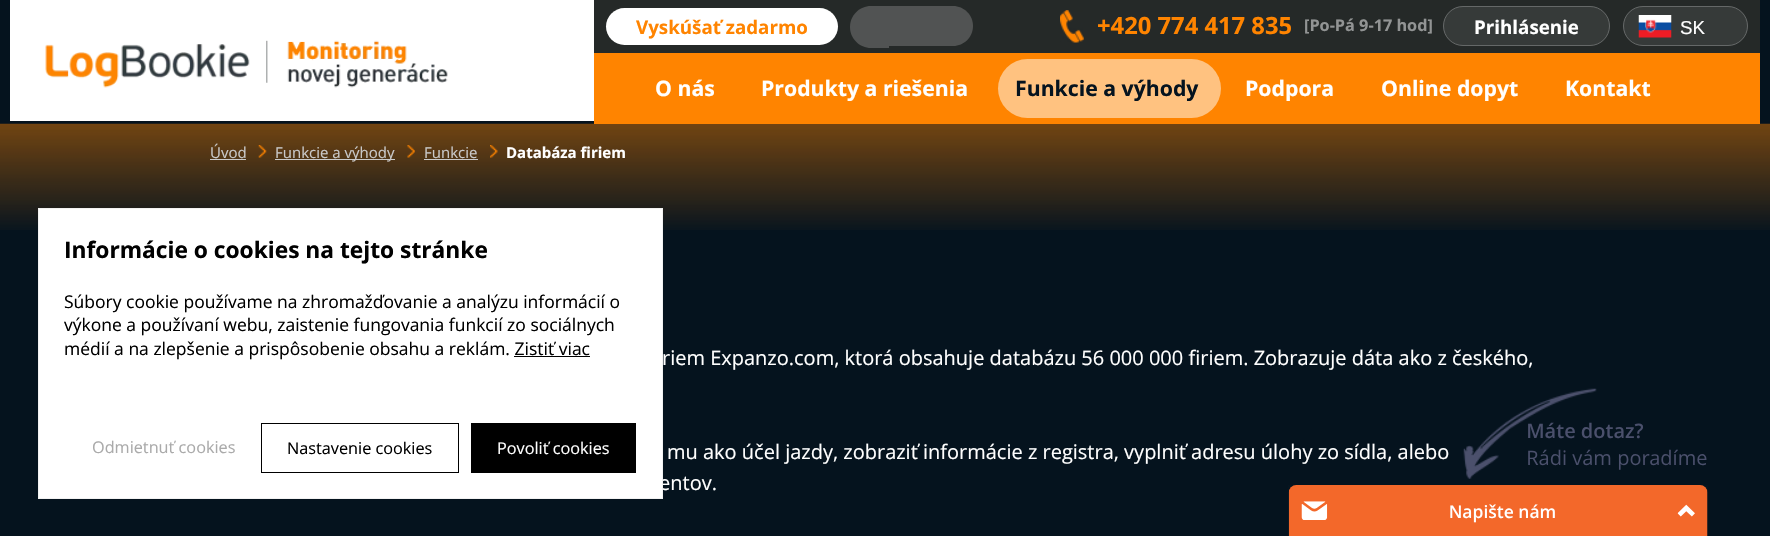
void draw(SkCanvas* c) {
SkPaint p;
p.setAntiAlias(true);
auto F=[&](const char* family, int weight, float size, bool italic = false){SkFontStyle style(weight, SkFontStyle::kNormal_Width,italic ? SkFontStyle::kItalic_Slant : SkFontStyle::kUpright_Slant);SkFont result(fontMgr->matchFamilyStyle(family, style), size);result.setSubpixel(true);return result;};
auto T=[&](const char* s, float x, float y, const SkFont& font){c->drawString(s, x, y, font, p);};
auto R=[&](float x, float y, float w, float h){c->drawRect(SkRect::MakeXYWH(x, y, w, h), p);};
auto Q=[&](float x, float y, float w, float h, float radius){c->drawRoundRect(SkRect::MakeXYWH(x, y, w, h), radius, radius, p);};
auto I=[&](const char* path, float x, float y, float w, float h){auto image = SkImages::DeferredFromEncodedData(SkData::MakeFromFileName(path));c->drawImageRect(image, SkRect::MakeXYWH(x, y, w, h), SkSamplingOptions());};
auto P=[&](const char* data, bool evenOdd = false){SkPath result = *SkParsePath::FromSVGString(data);if (evenOdd) result.setFillType(SkPathFillType::kEvenOdd);return result;};
c->clear(0xff05131e);
I("1.png",0,123,1770,107);
p.setColor(0xffffffff);
R(10,0,584,121);
I("2.png",45,40,403,48);
p.setColor(0xff252928);
R(594,0,1166,53);
p.setColor(0xffffffff);
Q(606,8,232,37,18.5);
auto f1 = F("Open Sans",700,18.75);
p.setColor(0xffff8400);
T("Vyskúšať zadarmo",636,34,f1);
p.setColor(0xff515353);
c->drawPath(P("M871 6h18v42h-18c-11.5 0-21-9.5-21-21c0-11.5 9.5-21 21-21z"),p);
c->drawPath(P("M889 6h64c11 0 20 9 20 20c0 11-9 20-20 20h-64z"),p);
I("3.png",1060,10,24,33);
auto f2 = F("Open Sans",700,23.75);
p.setColor(0xffff8400);
T("+420 774 417 835",1097,34,f2);
auto f3 = F("Open Sans",700,16.25);
p.setColor(0xff929494);
T("[Po-Pá 9-17 hod]",1304,31,f3);
p.setColor(0xff363a39);
c->drawRoundRect(SkRect::MakeXYWH(1443.5,6.5,166,39),19.5,19.5,p);
p.setStroke(true);
p.setStrokeWidth(1);
p.setColor(0xff656868);
c->drawRoundRect(SkRect::MakeXYWH(1443.5,6.5,166,39),19.5,19.5,p);
p.setStroke(false);
p.setColor(0xffffffff);
T("Prihlásenie",1474,34,f1);
p.setColor(0xff363a39);
c->drawRoundRect(SkRect::MakeXYWH(1623.5,6.5,124,39),19.5,19.5,p);
p.setStroke(true);
p.setColor(0xff656868);
c->drawRoundRect(SkRect::MakeXYWH(1623.5,6.5,124,39),19.5,19.5,p);
I("4.png",1638,15,34,23);
auto f4 = F("Liberation Sans",400,18.75);
p.setStroke(false);
p.setColor(0xffffffff);
T("SK",1680,34,f4);
p.setColor(0xffff8400);
R(594,53,1166,71);
auto f5 = F("Open Sans",700,21.25);
p.setColor(0xffffffff);
T("O nás",655,96,f5);
T("Produkty a riešenia",761,96,f5);
p.setColor(0xffffc280);
Q(998,59,223,59,29.5);
p.setColor(0xff05131f);
T("Funkcie a výhody",1015,96,f5);
p.setColor(0xffffffff);
T("Podpora",1245,96,f5);
T("Online dopyt",1381,96,f5);
T("Kontakt",1565,96,f5);
auto f6 = F("Open Sans",400,15);
p.setColor(0xffc9c9c9);
T("Úvod",210,158,f6);
R(210,159,36,1);
I("5.png",258,145,9,13);
R(275,159,120,1);
T("Funkcie a výhody",275,158,f6);
I("6.png",407,145,8,13);
T("Funkcie",424,158,f6);
R(424,159,54,1);
I("7.png",490,145,8,13);
auto f7 = F("Open Sans",700,15);
p.setColor(0xffffffff);
T("Databáza firiem",506,158,f7);
auto f8 = F("Open Sans",400,20);
T("riem Expanzo.com, ktorá obsahuje databázu 56 000 000 firiem. Zobrazuje dáta ako z českého,",662,365,f8);
T("mu ako účel jazdy, zobraziť informácie z registra, vyplniť adresu úlohy zo sídla, alebo",667,459,f8);
T("entov.",659,490,f8);
c->drawRect(SkRect::MakeXYWH(38.5,208.5,624,290),p);
p.setStroke(true);
p.setColor(0xfff2f2f2);
c->drawRect(SkRect::MakeXYWH(38.5,208.5,624,290),p);
auto f9 = F("Open Sans",700,22.75);
p.setStroke(false);
p.setColor(0xff000000);
T("Informácie o cookies na tejto stránke",64,258,f9);
auto f10 = F("Open Sans",400,17.5);
T("Súbory cookie používame na zhromažďovanie a analýzu informácií o",64,308,f10);
T("výkone a používaní webu, zaistenie fungovania funkcií zo sociálnych",64,331,f10);
T("médií a na zlepšenie a prispôsobenie obsahu a reklám. Zistiť viac",64,355,f10);
R(514,356,76,1);
auto f11 = F("Open Sans",400,16.25);
p.setColor(0xffaaaaaa);
T("Odmietnuť cookies",92,453,f11);
p.setStroke(true);
p.setColor(0xff000000);
c->drawRect(SkRect::MakeXYWH(261.5,423.5,197,49),p);
p.setStroke(false);
T("Nastavenie cookies",287,454,f11);
R(471,423,165,50);
p.setColor(0xffffffff);
T("Povoliť cookies",497,454,f11);
I("8.png",1463,388,244,91);
I("9.png",1288,485,420,51);
}
